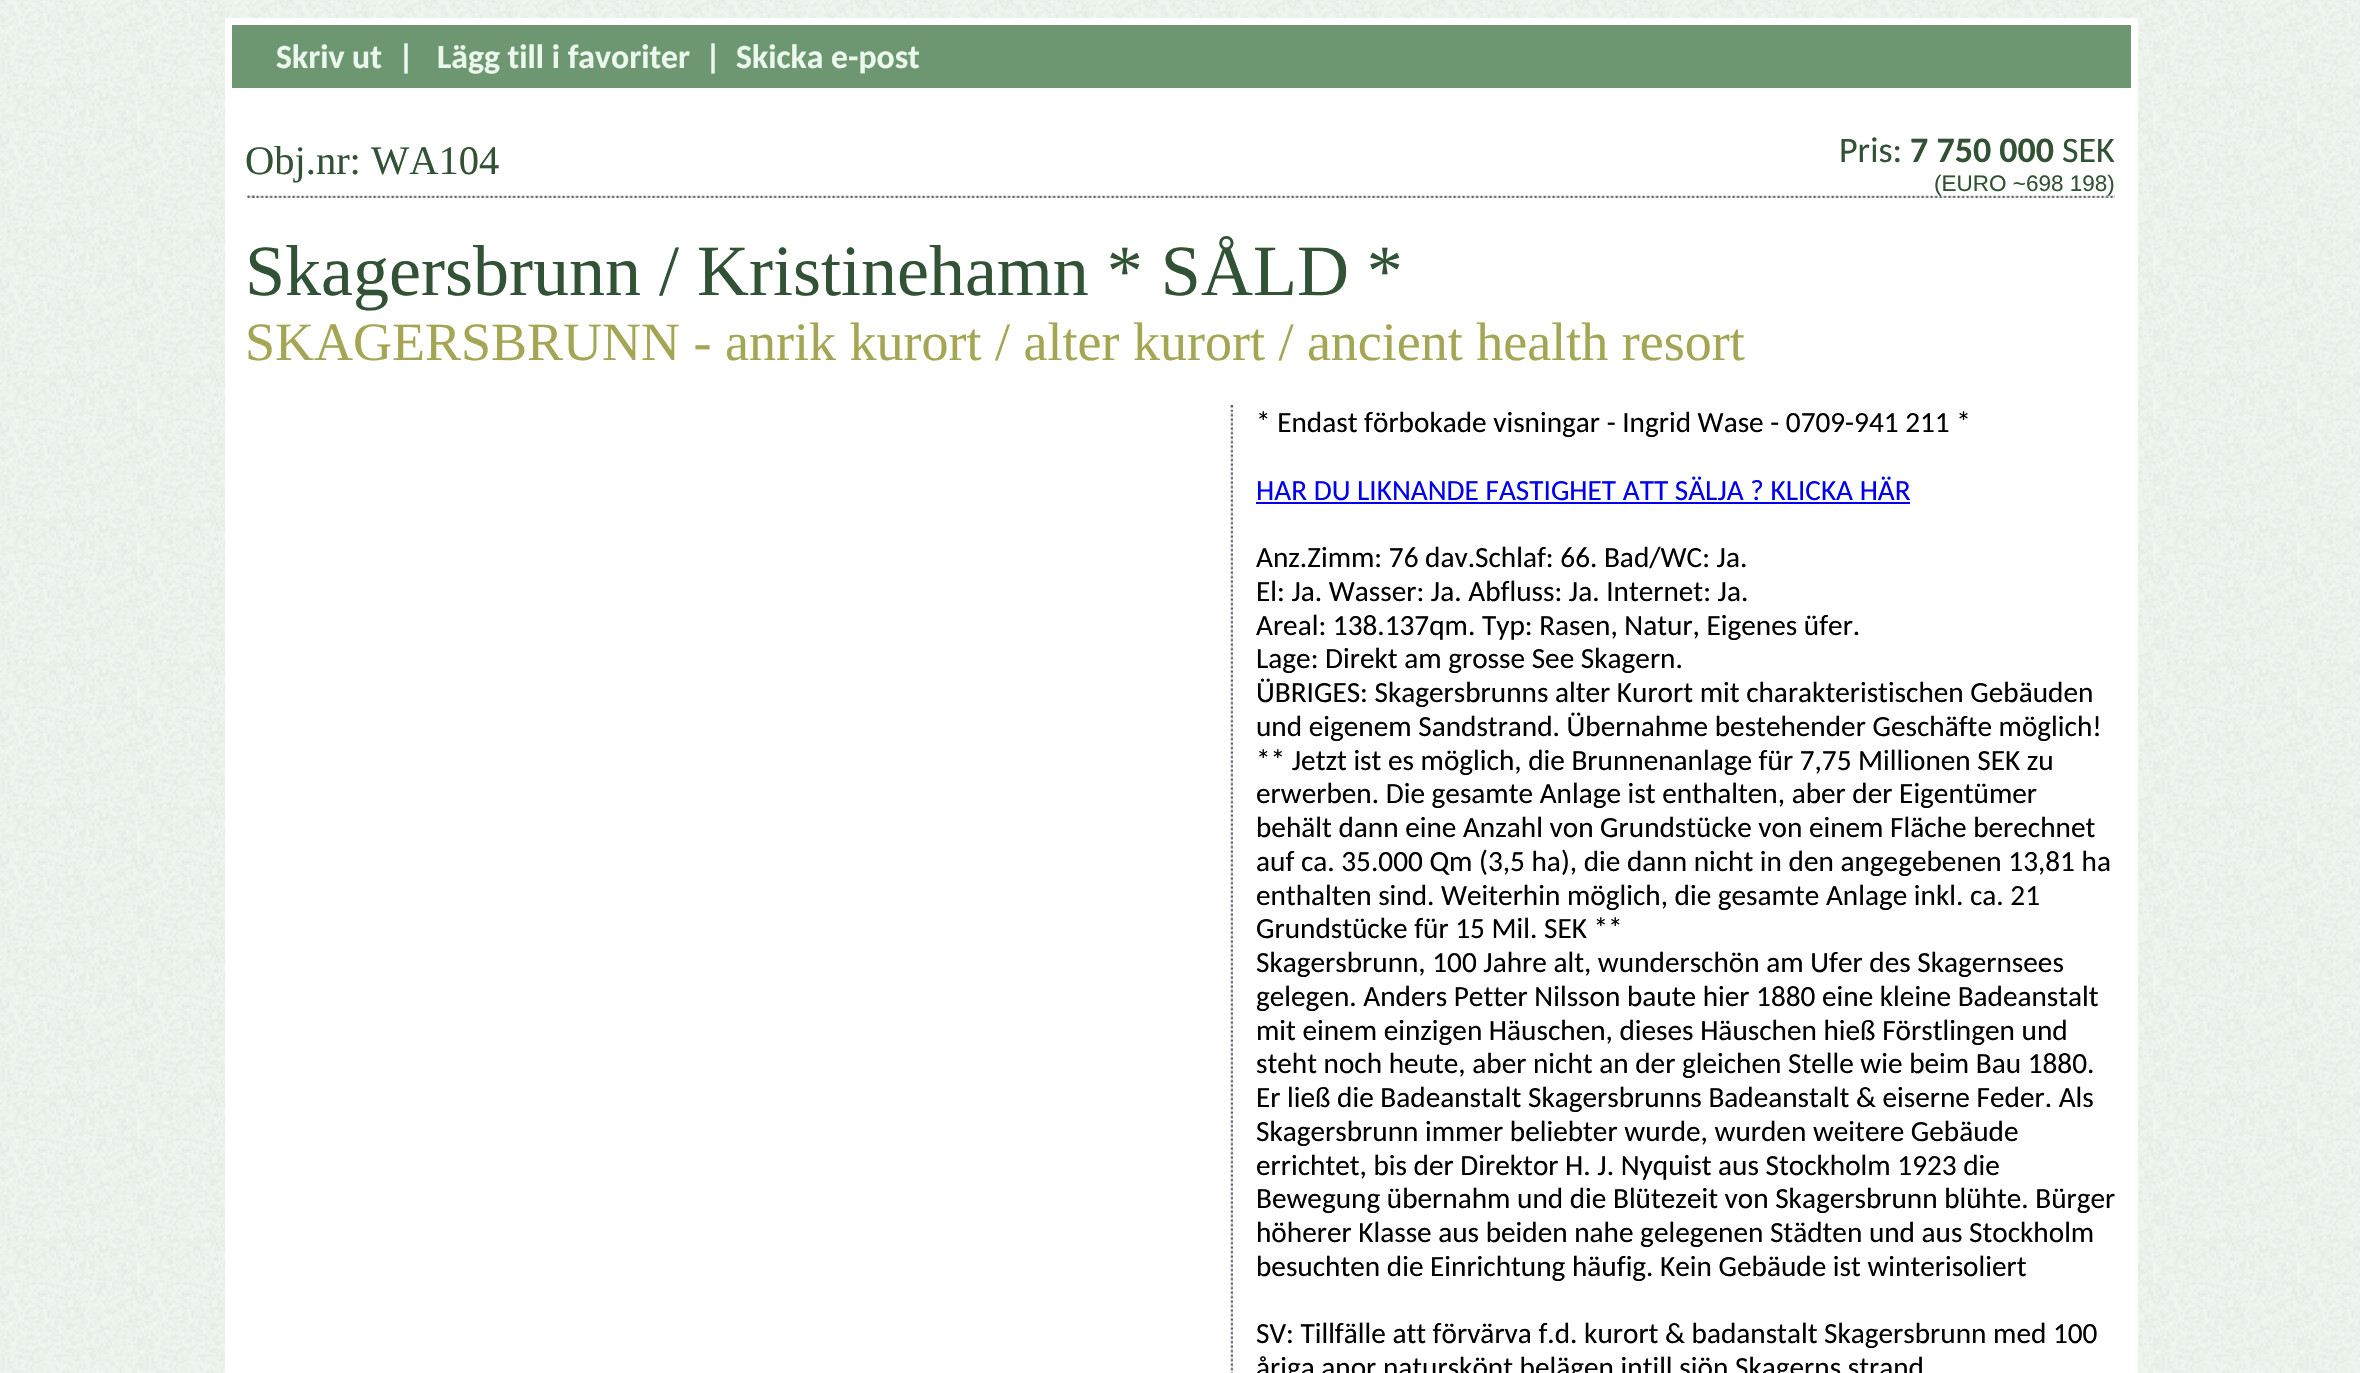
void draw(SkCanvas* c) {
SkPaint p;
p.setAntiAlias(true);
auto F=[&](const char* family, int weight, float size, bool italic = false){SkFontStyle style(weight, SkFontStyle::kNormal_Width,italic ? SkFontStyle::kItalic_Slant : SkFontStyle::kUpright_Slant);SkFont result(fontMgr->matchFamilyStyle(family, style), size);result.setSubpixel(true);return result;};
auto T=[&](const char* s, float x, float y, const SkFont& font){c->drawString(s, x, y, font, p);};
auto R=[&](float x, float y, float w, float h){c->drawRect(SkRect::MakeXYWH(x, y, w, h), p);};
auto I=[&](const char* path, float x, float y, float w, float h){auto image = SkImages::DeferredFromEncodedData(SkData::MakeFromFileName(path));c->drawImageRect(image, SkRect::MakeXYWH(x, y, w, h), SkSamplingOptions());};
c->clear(0xffffffff);
I("1.png",0,0,2360,1373);
p.setColor(0xffffffff);
R(225,18,1913,1355);
p.setColor(0xff6c9770);
R(232,25,1899,63);
auto f1 = F("Carlito",700,33.75);
p.setColor(0xffecf8ed);
T("Skriv ut",276,68,f1);
T("|",398,68,f1);
T("Lägg till i favoriter",437,68,f1);
T("|",705,68,f1);
T("Skicka e-post",736,68,f1);
auto f2 = F("Liberation Serif",400,40.5);
p.setColor(0xff325235);
T("Obj.nr: WA104",245,174,f2);
auto f3 = F("Carlito",400,36);
T("Pris:",1839,162,f3);
auto f4 = F("Carlito",700,36);
T("7 750 000",1910,162,f4);
T("SEK",2062,162,f3);
I("2.png",245,195,1870,3);
auto f5 = F("Liberation Sans",400,22.5);
T("(EURO ~698 198)",1934,191,f5);
I("3.png",245,195,10,3);
auto f6 = F("Liberation Serif",400,72);
T("Skagersbrunn / Kristinehamn * SÅLD *",245,295,f6);
auto f7 = F("Liberation Serif",400,54);
p.setColor(0xffa5a654);
T("SKAGERSBRUNN - anrik kurort / alter kurort / ancient health resort",245,360,f7);
I("4.png",1230,405,3,968);
I("5.png",1230,405,3,5);
auto f8 = F("Carlito",400,29.25);
p.setColor(0xff000000);
T("* Endast förbokade visningar - Ingrid Wase - 0709-941 211 *",1256,432,f8);
p.setColor(0xff0000ee);
T("HAR DU LIKNANDE FASTIGHET ATT SÄLJA ? KLICKA HÄR",1256,500,f8);
R(1256,502,654,2);
p.setColor(0xff000000);
T("Anz.Zimm: 76 dav.Schlaf: 66. Bad/WC: Ja.",1256,567,f8);
T("El: Ja. Wasser: Ja. Abfluss: Ja. Internet: Ja.",1256,601,f8);
T("Areal: 138.137qm. Typ: Rasen, Natur, Eigenes üfer.",1256,635,f8);
T("Lage: Direkt am grosse See Skagern.",1256,668,f8);
T("ÜBRIGES: Skagersbrunns alter Kurort mit charakteristischen Gebäuden",1256,702,f8);
T("und eigenem Sandstrand. Übernahme bestehender Geschäfte möglich!",1256,736,f8);
T("** Jetzt ist es möglich, die Brunnenanlage für 7,75 Millionen SEK zu",1256,770,f8);
T("erwerben. Die gesamte Anlage ist enthalten, aber der Eigentümer",1256,803,f8);
T("behält dann eine Anzahl von Grundstücke von einem Fläche berechnet",1256,837,f8);
T("auf ca. 35.000 Qm (3,5 ha), die dann nicht in den angegebenen 13,81 ha",1256,871,f8);
T("enthalten sind. Weiterhin möglich, die gesamte Anlage inkl. ca. 21",1256,905,f8);
T("Grundstücke für 15 Mil. SEK **",1256,938,f8);
T("Skagersbrunn, 100 Jahre alt, wunderschön am Ufer des Skagernsees",1256,972,f8);
T("gelegen. Anders Petter Nilsson baute hier 1880 eine kleine Badeanstalt",1256,1006,f8);
T("mit einem einzigen Häuschen, dieses Häuschen hieß Förstlingen und",1256,1040,f8);
T("steht noch heute, aber nicht an der gleichen Stelle wie beim Bau 1880.",1256,1073,f8);
T("Er ließ die Badeanstalt Skagersbrunns Badeanstalt & eiserne Feder. Als",1256,1107,f8);
T("Skagersbrunn immer beliebter wurde, wurden weitere Gebäude",1256,1141,f8);
T("errichtet, bis der Direktor H. J. Nyquist aus Stockholm 1923 die",1256,1175,f8);
T("Bewegung übernahm und die Blütezeit von Skagersbrunn blühte. Bürger",1256,1208,f8);
T("höherer Klasse aus beiden nahe gelegenen Städten und aus Stockholm",1256,1242,f8);
T("besuchten die Einrichtung häufig. Kein Gebäude ist winterisoliert",1256,1276,f8);
T("SV: Tillfälle att förvärva f.d. kurort & badanstalt Skagersbrunn med 100",1256,1343,f8);
T("åriga anor naturskönt belägen intill sjön Skagerns strand",1256,1377,f8);
}
